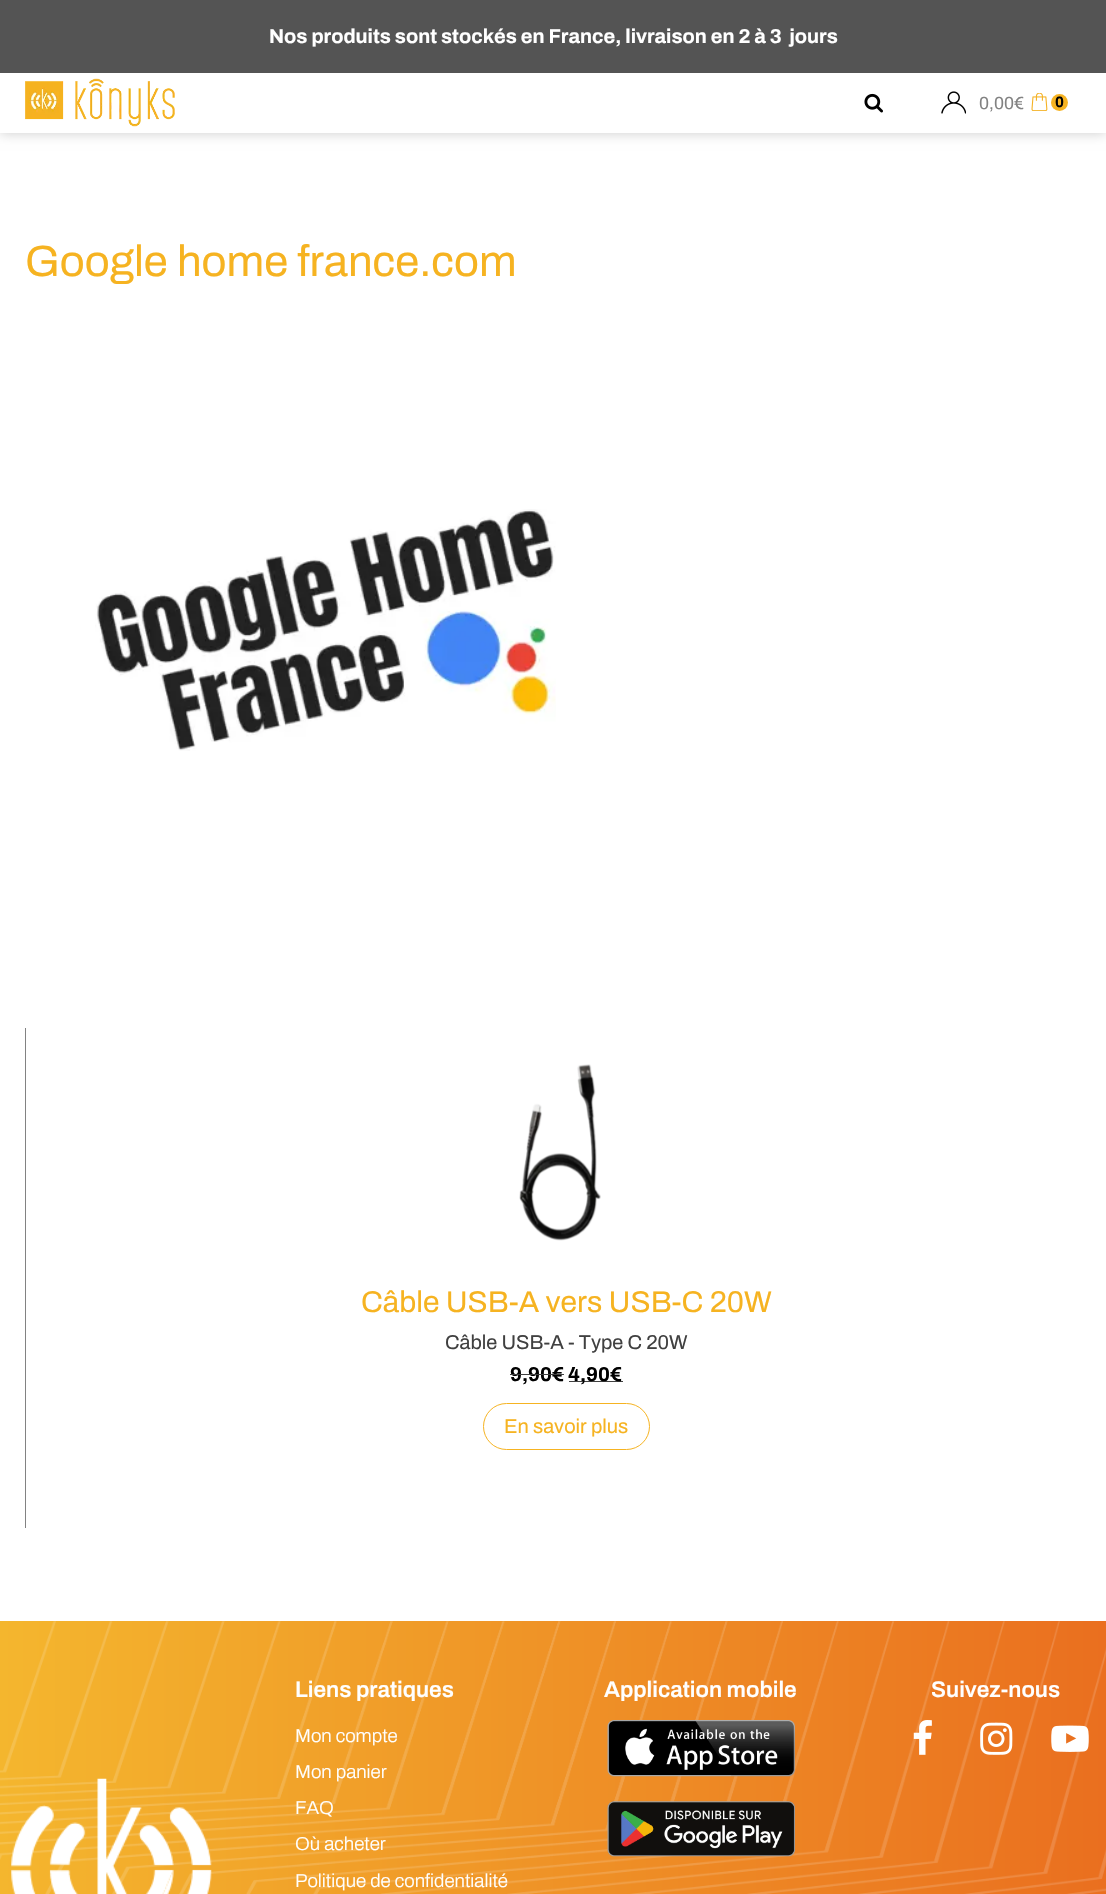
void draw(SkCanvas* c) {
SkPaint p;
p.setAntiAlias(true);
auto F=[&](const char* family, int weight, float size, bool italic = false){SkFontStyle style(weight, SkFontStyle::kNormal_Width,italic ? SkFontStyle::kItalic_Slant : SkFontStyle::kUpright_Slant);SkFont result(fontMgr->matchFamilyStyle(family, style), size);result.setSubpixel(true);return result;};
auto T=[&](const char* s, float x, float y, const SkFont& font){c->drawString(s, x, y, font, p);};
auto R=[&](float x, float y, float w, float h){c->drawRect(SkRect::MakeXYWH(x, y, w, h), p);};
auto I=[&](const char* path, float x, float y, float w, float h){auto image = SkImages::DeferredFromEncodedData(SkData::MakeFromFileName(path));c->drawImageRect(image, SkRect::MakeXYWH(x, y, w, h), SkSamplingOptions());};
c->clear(0xffffffff);
p.setColor(0x33000000);
p.setMaskFilter(SkMaskFilter::MakeBlur(kNormal_SkBlurStyle, 6));
c->drawRect(SkRect::MakeXYWH(0,0,1106,133),p);
p.setMaskFilter(nullptr);
p.setColor(0xffffffff);
R(0,73,1106,60);
p.setColor(0xff545454);
R(0,0,1106,73);
auto f1 = F("Archivo",700,20);
p.setColor(0xffffffff);
T("Nos produits sont stockés en France, livraison en 2 à 3  jours",269,43,f1);
I("1.png",25,78,150,49);
I("2.png",864,93,19,20);
I("3.png",941,91,25,23);
auto f2 = F("Archivo",400,17.5);
p.setColor(0xff828282);
T("0,00€",979,109,f2);
I("4.png",1031,93,17,18);
p.setColor(0xfff6b321);
c->drawCircle(1059.5,102.5,8.5,p);
auto f3 = F("Archivo",700,15);
p.setColor(0xff000000);
T("0",1055,107,f3);
auto f4 = F("Archivo",400,43.75);
p.setColor(0xfff6b321);
T("Google home france.com",25,276,f4);
I("5.png",95,509,461,242);
p.setColor(0xff828282);
R(25,1028,1,500);
I("6.png",519,1064,82,177);
auto f5 = F("Archivo",400,30);
p.setColor(0xfff6b321);
T("Câble USB-A vers USB-C 20W",361,1312,f5);
auto f6 = F("Archivo",400,20);
p.setColor(0xff404040);
T("Câble USB-A - Type C 20W",445,1349,f6);
p.setColor(0xff000000);
T("9,90",510,1381,f1);
p.setColor(0xff404040);
R(510,1374,43,1);
p.setColor(0xff000000);
T("€",552,1381,f1);
p.setColor(0xff404040);
R(553,1374,11,1);
R(569,1381,54,1);
p.setColor(0xff000000);
T("4,90€",568,1381,f1);
p.setStroke(true);
p.setStrokeWidth(1);
p.setColor(0xfff6b321);
c->drawRoundRect(SkRect::MakeXYWH(483.5,1403.5,166,46),23,23,p);
p.setStroke(false);
T("En savoir plus",504,1433,f6);
{
const SkColor colors[] = {0xfff4b62e,0xffea6f1f};
const float stops[] = {0,1};
const SkPoint ends[] = {{0,1856}, {1106,1856}};
p.setShader(SkGradientShader::MakeLinear(ends, colors, stops, 2, SkTileMode::kClamp));
p.setAlpha(255);
}
R(0,1621,1106,273);
I("7.png",0,1621,1106,273);
auto f7 = F("Archivo",600,22.5);
p.setShader(nullptr);
p.setColor(0xffffffff);
T("Liens pratiques",295,1697,f7);
auto f8 = F("Archivo",300,18.75);
T("Mon compte",295,1742,f8);
T("Mon panier",295,1778,f8);
T("FAQ",295,1814,f8);
T("Où acheter",295,1850,f8);
T("Politique de confidentialité",295,1887,f8);
T("Application mobile",604,1697,f7);
I("8.png",607,1720,188,57);
I("9.png",607,1801,188,56);
T("Suivez-nous",931,1697,f7);
I("10.png",913,1720,19,35);
I("11.png",980,1722,33,33);
I("12.png",1051,1725,38,27);
I("13.png",11,1778,201,116);
}
